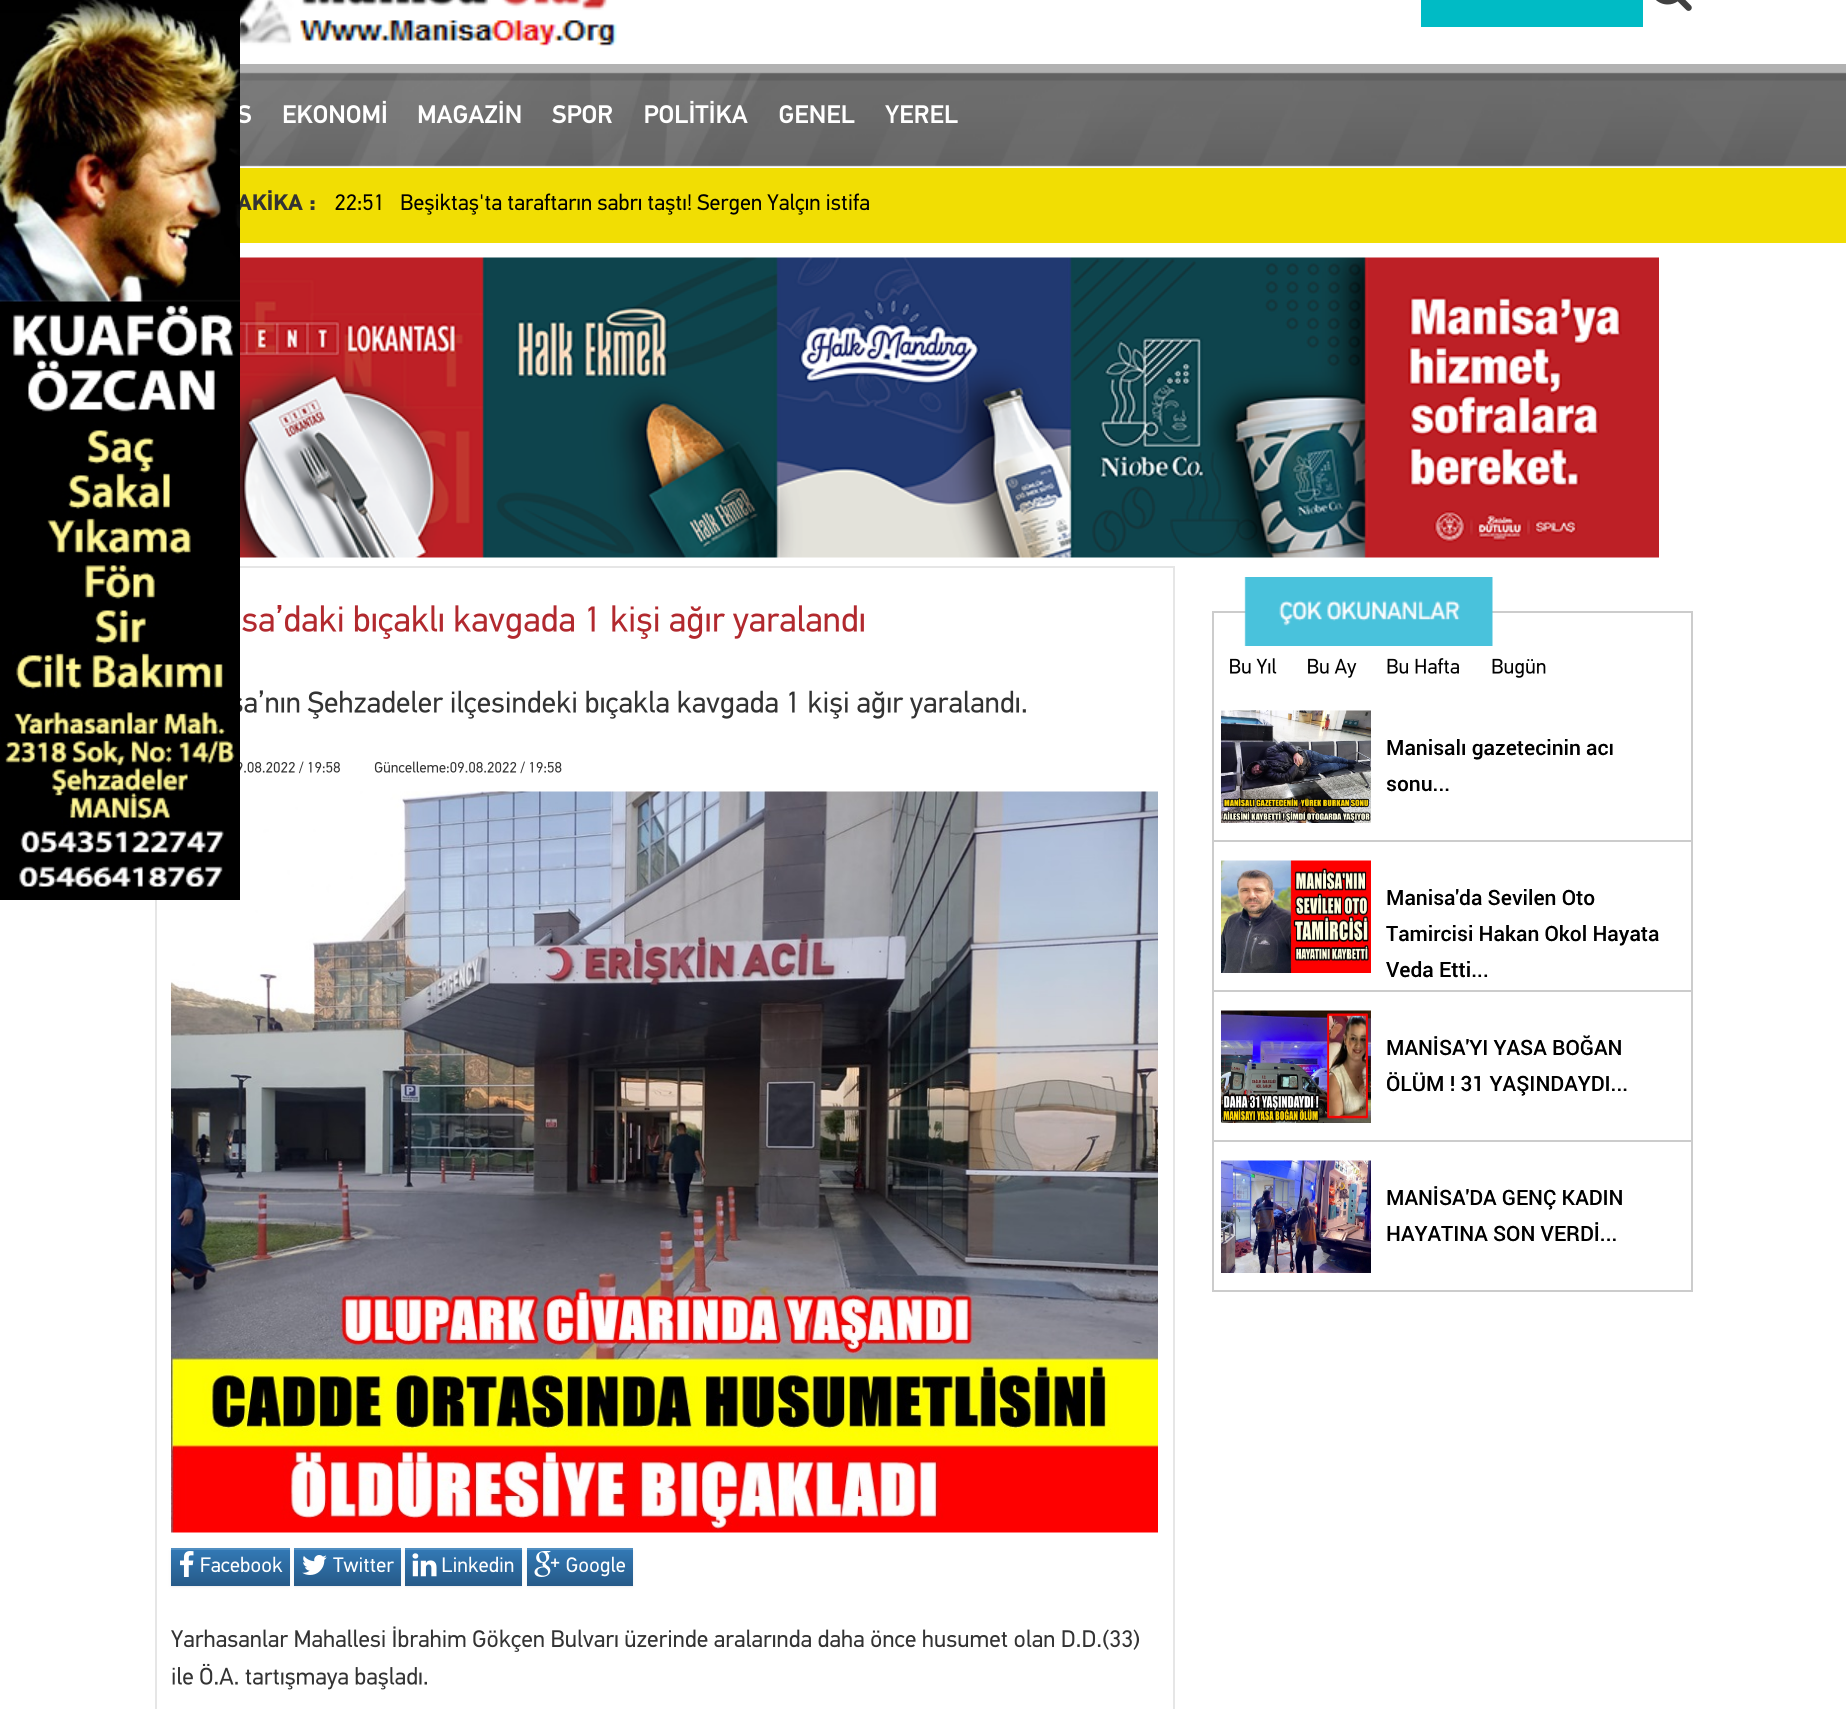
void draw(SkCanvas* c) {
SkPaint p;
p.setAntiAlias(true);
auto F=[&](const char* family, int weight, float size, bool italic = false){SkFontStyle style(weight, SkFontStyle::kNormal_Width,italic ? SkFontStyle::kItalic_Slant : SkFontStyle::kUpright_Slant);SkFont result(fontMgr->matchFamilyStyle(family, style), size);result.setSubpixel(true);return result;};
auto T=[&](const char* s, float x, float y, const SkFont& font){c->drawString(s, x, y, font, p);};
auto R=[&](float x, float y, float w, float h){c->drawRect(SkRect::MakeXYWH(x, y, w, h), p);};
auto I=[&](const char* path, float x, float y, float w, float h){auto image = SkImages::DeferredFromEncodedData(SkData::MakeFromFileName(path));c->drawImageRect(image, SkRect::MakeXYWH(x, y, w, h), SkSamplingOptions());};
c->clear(0xffffffff);
p.setStroke(true);
p.setStrokeWidth(2);
p.setColor(0xffe6e6e6);
c->drawRect(SkRect::MakeXYWH(156,567,1018,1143),p);
I("18.png",171,791,987,742);
I("1.png",0,0,240,900);
I("2.png",240,0,377,46);
p.setStroke(false);
p.setColor(0xff00bbc5);
R(1421,0,222,27);
I("3.png",1656,0,36,11);
I("4.png",240,64,1606,103);
I("5.png",240,105,11,19);
I("6.png",283,100,103,24);
I("7.png",418,100,103,24);
I("8.png",552,105,60,19);
I("9.png",645,100,103,24);
I("10.png",779,105,76,19);
I("11.png",885,105,73,18);
p.setColor(0xfff1de03);
R(240,168,1606,75);
I("12.png",240,190,75,20);
I("13.png",335,193,534,22);
I("14.png",240,257,1419,301);
I("15.png",242,605,622,34);
I("16.png",240,690,786,29);
I("17.png",240,761,322,13);
p.setColor(0x12000000);
p.setMaskFilter(SkMaskFilter::MakeBlur(kNormal_SkBlurStyle, 1));
c->drawRect(SkRect::MakeXYWH(171,1550,119,37),p);
p.setMaskFilter(nullptr);
{
const SkColor colors[] = {0xff337ab7,0xff265a88};
const float stops[] = {0,1};
const SkPoint ends[] = {{230,1548}, {230,1586}};
p.setShader(SkGradientShader::MakeLinear(ends, colors, stops, 2, SkTileMode::kClamp));
p.setAlpha(255);
}
R(171,1550,119,36);
p.setShader(nullptr);
p.setColor(0xff518ec1);
R(171,1548,119,2);
I("19.png",180,1551,14,26);
I("20.png",201,1556,82,17);
p.setColor(0x12000000);
p.setMaskFilter(SkMaskFilter::MakeBlur(kNormal_SkBlurStyle, 1));
c->drawRect(SkRect::MakeXYWH(294,1550,107,37),p);
p.setMaskFilter(nullptr);
{
const SkColor colors[] = {0xff337ab7,0xff265a88};
const float stops[] = {0,1};
const SkPoint ends[] = {{347,1548}, {347,1586}};
p.setShader(SkGradientShader::MakeLinear(ends, colors, stops, 2, SkTileMode::kClamp));
p.setAlpha(255);
}
R(294,1550,107,36);
p.setShader(nullptr);
p.setColor(0xff518ec1);
R(294,1548,107,2);
I("21.png",302,1555,25,20);
I("22.png",333,1557,61,16);
p.setColor(0x12000000);
p.setMaskFilter(SkMaskFilter::MakeBlur(kNormal_SkBlurStyle, 1));
c->drawRect(SkRect::MakeXYWH(405,1550,117,37),p);
p.setMaskFilter(nullptr);
{
const SkColor colors[] = {0xff337ab7,0xff265a88};
const float stops[] = {0,1};
const SkPoint ends[] = {{464,1548}, {464,1586}};
p.setShader(SkGradientShader::MakeLinear(ends, colors, stops, 2, SkTileMode::kClamp));
p.setAlpha(255);
}
R(405,1550,117,36);
p.setShader(nullptr);
p.setColor(0xff518ec1);
R(405,1548,117,2);
I("23.png",412,1553,25,24);
I("24.png",442,1556,72,17);
p.setColor(0x12000000);
p.setMaskFilter(SkMaskFilter::MakeBlur(kNormal_SkBlurStyle, 1));
c->drawRect(SkRect::MakeXYWH(527,1550,106,37),p);
p.setMaskFilter(nullptr);
{
const SkColor colors[] = {0xff337ab7,0xff265a88};
const float stops[] = {0,1};
const SkPoint ends[] = {{580,1548}, {580,1586}};
p.setShader(SkGradientShader::MakeLinear(ends, colors, stops, 2, SkTileMode::kClamp));
p.setAlpha(255);
}
R(527,1550,106,36);
p.setShader(nullptr);
p.setColor(0xff518ec1);
R(527,1548,106,2);
I("25.png",534,1551,26,26);
I("26.png",566,1556,59,21);
I("27.png",171,1626,969,26);
I("28.png",172,1663,255,27);
p.setColor(0xffcccccc);
R(1212,611,480,2);
R(1691,611,2,681);
R(1212,611,2,681);
I("29.png",1244,577,249,69);
I("30.png",1230,658,47,16);
I("31.png",1308,658,49,20);
I("32.png",1387,658,72,16);
I("33.png",1492,658,54,20);
R(1214,840,477,2);
I("34.png",1221,710,150,113);
auto f1 = F("Roboto",500,21);
p.setColor(0xff000000);
T("Manisalı gazetecinin acı",1386,755,f1);
T("sonu...",1386,791,f1);
p.setColor(0xffcccccc);
R(1214,990,477,2);
I("35.png",1221,860,150,113);
p.setColor(0xff000000);
T("Manisa'da Sevilen Oto",1386,905,f1);
T("Tamircisi Hakan Okol Hayata",1386,941,f1);
T("Veda Etti...",1386,977,f1);
p.setColor(0xffcccccc);
R(1214,1140,477,2);
I("36.png",1221,1010,150,113);
p.setColor(0xff000000);
T("MANİSA'YI YASA BOĞAN",1386,1055,f1);
T("ÖLÜM ! 31 YAŞINDAYDI...",1386,1091,f1);
p.setColor(0xffcccccc);
R(1214,1290,477,2);
I("37.png",1221,1160,150,113);
p.setColor(0xff000000);
T("MANİSA'DA GENÇ KADIN",1386,1205,f1);
T("HAYATINA SON VERDİ...",1386,1241,f1);
}
